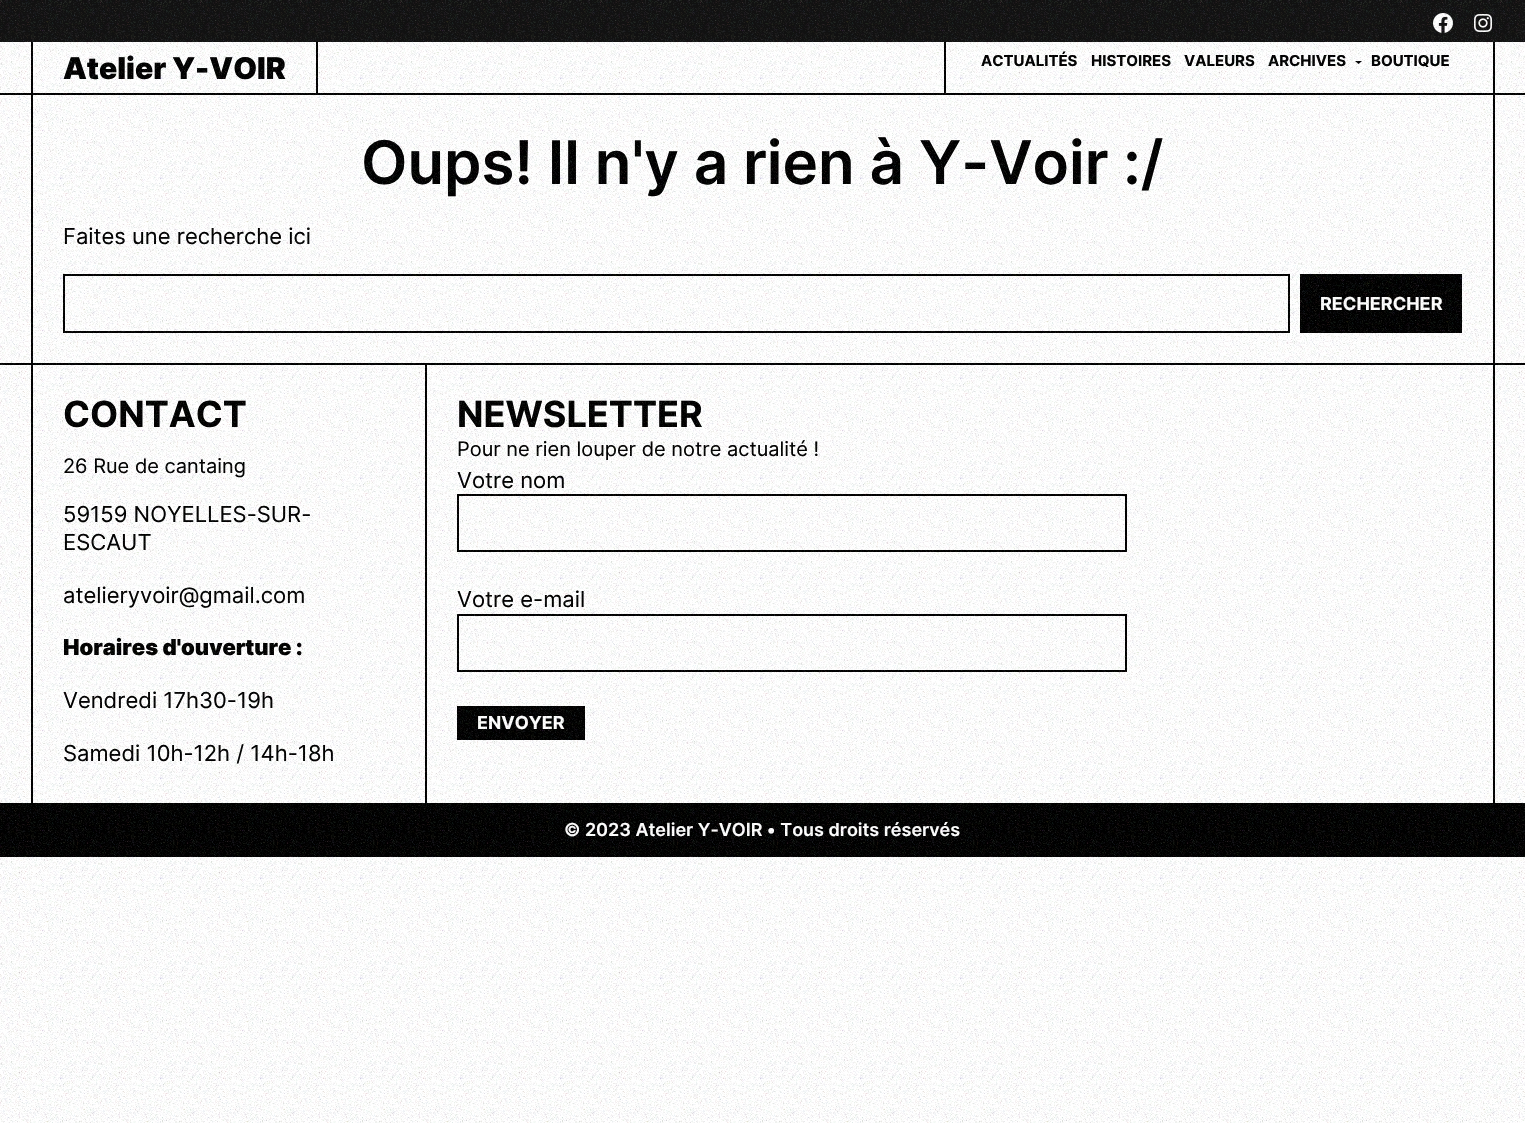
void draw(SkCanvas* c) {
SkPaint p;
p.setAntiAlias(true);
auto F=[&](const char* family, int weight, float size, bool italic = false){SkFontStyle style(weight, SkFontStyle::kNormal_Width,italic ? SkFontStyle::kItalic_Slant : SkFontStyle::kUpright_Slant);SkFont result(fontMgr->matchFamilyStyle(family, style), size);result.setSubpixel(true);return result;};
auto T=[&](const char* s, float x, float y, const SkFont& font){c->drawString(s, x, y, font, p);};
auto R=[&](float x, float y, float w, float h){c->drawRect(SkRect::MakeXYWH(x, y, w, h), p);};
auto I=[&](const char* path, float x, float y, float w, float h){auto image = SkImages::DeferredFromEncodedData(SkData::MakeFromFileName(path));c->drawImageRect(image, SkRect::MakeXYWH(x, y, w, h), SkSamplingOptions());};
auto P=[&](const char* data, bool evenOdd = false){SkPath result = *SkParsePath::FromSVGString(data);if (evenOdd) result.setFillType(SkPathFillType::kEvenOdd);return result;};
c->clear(0xffffffff);
p.setColor(0xff111111);
R(0,0,1525,42);
I("1.png",1433,13,20,20);
I("2.png",1474,14,18,18);
p.setColor(0xff000000);
R(0,93,1525,2);
R(316,42,2,51);
R(31,42,2,51);
auto f1 = F("Inter",900,30);
T("Atelier Y-VOIR",63,79,f1);
R(1493,42,2,51);
R(944,42,2,51);
auto f2 = F("Inter",700,15);
T("ACTUALITÉS",981,66,f2);
T("HISTOIRES",1091,66,f2);
T("VALEURS",1184,66,f2);
T("ARCHIVES",1268,66,f2);
c->drawPath(P("M1355 61l3.5 3l3.5-3"),p);
T("BOUTIQUE",1371,66,f2);
R(1493,95,2,268);
R(31,95,2,268);
auto f3 = F("Inter",600,60);
T("Oups! Il n'y a rien à Y-Voir :/",361,184,f3);
auto f4 = F("Inter",400,22);
T("Faites une recherche ici",63,244,f4);
p.setStroke(true);
p.setStrokeWidth(2);
c->drawRect(SkRect::MakeXYWH(64,275,1225,57),p);
p.setStroke(false);
R(1300,274,162,59);
auto f5 = F("Inter",700,18);
p.setColor(0xffffffff);
T("RECHERCHER",1320,310,f5);
p.setColor(0xff000000);
R(0,363,1525,2);
R(1493,365,2,438);
R(31,365,2,438);
R(425,365,2,438);
auto f6 = F("Inter",700,36);
T("CONTACT",63,427,f6);
auto f7 = F("Inter",400,20);
T("26 Rue de cantaing",63,473,f7);
T("59159 NOYELLES-SUR-",63,522,f4);
T("ESCAUT",63,550,f4);
T("atelieryvoir@gmail.com",63,603,f4);
auto f8 = F("Inter",900,22);
T("Horaires d'ouverture :",63,655,f8);
T("Vendredi 17h30-19h",63,708,f4);
T("Samedi 10h-12h / 14h-18h",63,761,f4);
T("NEWSLETTER",457,427,f6);
T("Pour ne rien louper de notre actualité !",457,456,f7);
T("Votre nom",457,488,f4);
p.setStroke(true);
c->drawRect(SkRect::MakeXYWH(458,495,668,56),p);
p.setStroke(false);
T("Votre e-mail",457,607,f4);
p.setStroke(true);
c->drawRect(SkRect::MakeXYWH(458,615,668,56),p);
p.setStroke(false);
R(457,706,128,34);
p.setColor(0xffffffff);
T("ENVOYER",477,729,f5);
p.setColor(0xff000000);
R(0,803,1525,54);
auto f9 = F("Inter",600,18);
p.setColor(0xffffffff);
T("© 2023 Atelier Y-VOIR • Tous droits réservés",564,836,f9);
I("3.png",0,0,1525,1123);
}
